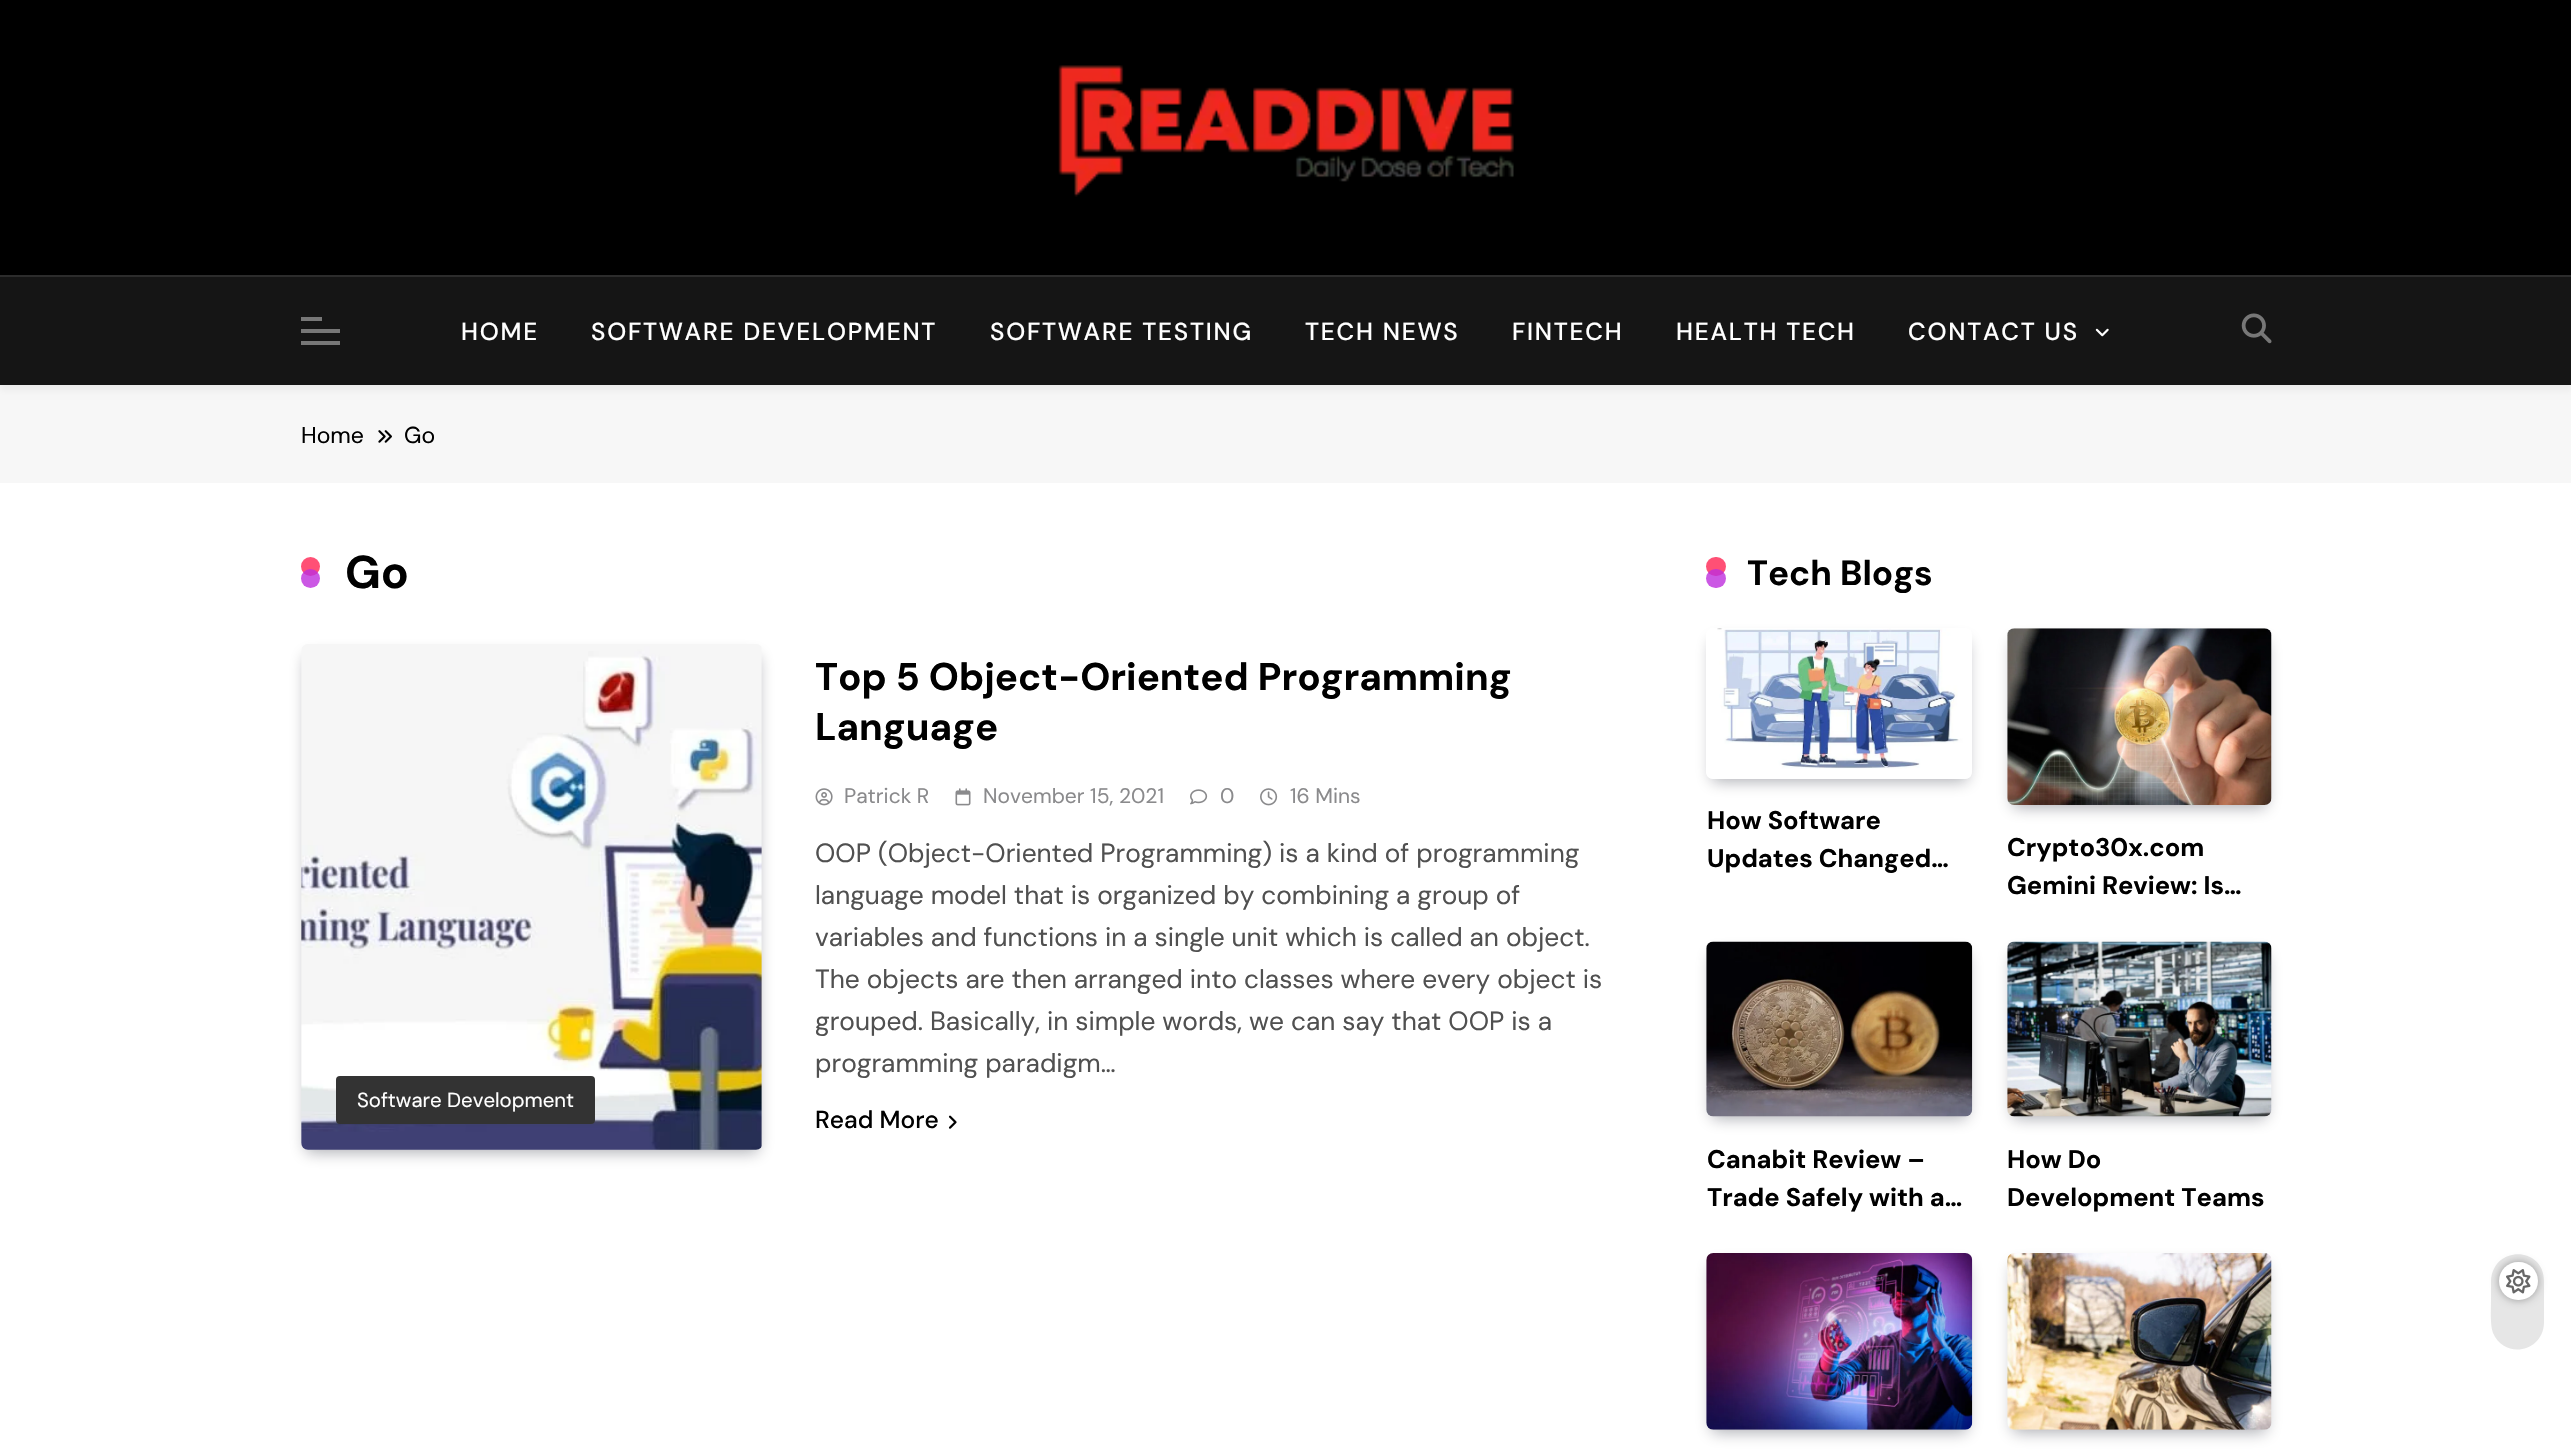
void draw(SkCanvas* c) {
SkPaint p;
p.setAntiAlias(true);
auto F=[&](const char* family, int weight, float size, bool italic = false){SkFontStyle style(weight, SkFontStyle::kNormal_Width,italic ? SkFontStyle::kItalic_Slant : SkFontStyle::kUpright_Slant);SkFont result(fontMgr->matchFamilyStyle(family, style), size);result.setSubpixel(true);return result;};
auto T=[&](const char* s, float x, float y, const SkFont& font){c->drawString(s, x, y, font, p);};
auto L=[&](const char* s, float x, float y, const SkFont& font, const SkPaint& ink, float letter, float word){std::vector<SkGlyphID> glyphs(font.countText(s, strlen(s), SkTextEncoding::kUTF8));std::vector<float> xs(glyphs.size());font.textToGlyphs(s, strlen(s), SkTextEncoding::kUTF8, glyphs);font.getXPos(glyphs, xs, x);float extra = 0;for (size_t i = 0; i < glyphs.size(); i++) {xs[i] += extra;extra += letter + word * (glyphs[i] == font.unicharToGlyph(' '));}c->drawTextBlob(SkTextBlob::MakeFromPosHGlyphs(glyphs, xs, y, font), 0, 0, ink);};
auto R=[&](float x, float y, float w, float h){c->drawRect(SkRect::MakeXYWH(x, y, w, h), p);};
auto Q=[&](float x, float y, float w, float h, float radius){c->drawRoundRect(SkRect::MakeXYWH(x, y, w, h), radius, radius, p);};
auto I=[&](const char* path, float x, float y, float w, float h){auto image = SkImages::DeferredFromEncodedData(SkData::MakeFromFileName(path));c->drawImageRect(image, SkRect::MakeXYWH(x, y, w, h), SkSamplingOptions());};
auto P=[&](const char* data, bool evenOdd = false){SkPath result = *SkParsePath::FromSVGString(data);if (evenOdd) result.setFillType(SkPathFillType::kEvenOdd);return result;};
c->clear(0xffffffff);
p.setColor(0xfff7f7f7);
R(0,385,2571,98);
p.setColor(0x0d000000);
p.setMaskFilter(SkMaskFilter::MakeBlur(kNormal_SkBlurStyle, 3.5));
c->drawRect(SkRect::MakeXYWH(0,5,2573,385),p);
p.setMaskFilter(nullptr);
p.setColor(0xff000000);
R(0,0,2571,275);
I("1.png",1058,65,456,132);
p.setColor(0xff151515);
R(0,277,2571,108);
p.setColor(0xff2c2c2c);
R(0,275,2571,2);
p.setColor(0xff777777);
R(301,317,21,4);
R(301,329,39,4);
R(301,341,39,4);
auto f1 = F("DM Sans",500,24.5);
p.setColor(0xffffffff);
L("HOME",461,340,f1,p,1.75,0);
L("SOFTWARE DEVELOPMENT",591,340,f1,p,1.75,0);
L("SOFTWARE TESTING",990,340,f1,p,1.75,0);
L("TECH NEWS",1305,340,f1,p,1.75,0);
L("FINTECH",1512,340,f1,p,1.75,0);
L("HEALTH TECH",1676,340,f1,p,1.75,0);
L("CONTACT US",1908,340,f1,p,1.75,0);
I("2.png",2095,328,14,9);
I("3.png",2241,313,31,31);
auto f2 = F("DM Sans",400,23);
p.setColor(0xff000000);
T("Home",301,443,f2);
I("4.png",378,430,14,13);
T("Go",404,443,f2);
p.setColor(0xffff5075);
c->drawCircle(310.5,566.5,9.5,p);
auto f3 = F("DM Sans",700,46);
p.setColor(0xff000000);
T("Go",345,588,f3);
p.setColor(0xccbe2edd);
c->drawCircle(310.5,578.5,9.5,p);
p.setColor(0x59070a19);
p.setMaskFilter(SkMaskFilter::MakeBlur(kNormal_SkBlurStyle, 8));
c->drawRoundRect(SkRect::MakeXYWH(306,656,452,496),2,2,p);
p.setMaskFilter(nullptr);
I("5.png",301,644,461,506);
p.setColor(0xff333333);
Q(336,1076,259,48,4);
auto f4 = F("DM Sans",400,20.4);
p.setColor(0xffffffff);
T("Software Development",357,1107,f4);
auto f5 = F("DM Sans",700,38.5);
p.setColor(0xff000000);
T("Top 5 Object-Oriented Programming",815,690,f5);
T("Language",815,740,f5);
I("6.png",815,788,18,18);
auto f6 = F("DM Sans",400,21);
p.setColor(0xff8a8a8c);
T("Patrick R",844,803,f6);
I("7.png",955,788,16,18);
T("November 15, 2021",983,803,f6);
I("8.png",1190,789,18,16);
T("0",1220,803,f6);
I("9.png",1260,788,18,18);
T("16 Mins",1290,803,f6);
auto f7 = F("DM Sans",400,26.25);
p.setColor(0xff505050);
T("OOP (Object-Oriented Programming) is a kind of programming",815,862,f7);
T("language model that is organized by combining a group of",815,904,f7);
T("variables and functions in a single unit which is called an object.",815,946,f7);
T("The objects are then arranged into classes where every object is",815,988,f7);
T("grouped. Basically, in simple words, we can say that OOP is a",815,1030,f7);
T("programming paradigm…",815,1072,f7);
p.setColor(0xff000000);
T("Read More",815,1128,f1);
I("10.png",948,1115,9,14);
p.setColor(0xffff5075);
Q(1706,557,20,19,9.5);
auto f8 = F("DM Sans",700,35);
p.setColor(0xff000000);
T("Tech Blogs",1747,585,f8);
p.setColor(0xccbe2edd);
Q(1706,569,20,19,9.5);
c->save();
c->clipPath(P("M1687 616h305v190h-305zm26 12h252c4 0 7 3 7 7v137c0 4-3 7-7 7h-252c-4 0-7-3-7-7v-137c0-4 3-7 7-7z",true),true);
p.setColor(0x59070a19);
p.setMaskFilter(SkMaskFilter::MakeBlur(kNormal_SkBlurStyle, 8));
c->drawRoundRect(SkRect::MakeXYWH(1712,641,255,140),2,2,p);
p.setMaskFilter(nullptr);
c->restore();
I("11.png",1709,628,262,151);
auto f9 = F("DM Sans",700,25.5);
p.setColor(0xff000000);
T("How Software",1707,829,f9);
T("Updates Changed…",1707,867,f9);
p.setColor(0x59070a19);
p.setMaskFilter(SkMaskFilter::MakeBlur(kNormal_SkBlurStyle, 8));
c->drawRoundRect(SkRect::MakeXYWH(2013,641,253,166),2,2,p);
p.setMaskFilter(nullptr);
I("12.png",2007,628,265,177);
p.setColor(0xff000000);
T("Crypto30x.com",2007,856,f9);
T("Gemini Review: Is…",2007,894,f9);
p.setColor(0x59070a19);
p.setMaskFilter(SkMaskFilter::MakeBlur(kNormal_SkBlurStyle, 8));
c->drawRoundRect(SkRect::MakeXYWH(1712,954,255,164),2,2,p);
p.setMaskFilter(nullptr);
I("13.png",1706,941,267,176);
p.setColor(0xff000000);
T("Canabit Review –",1707,1168,f9);
T("Trade Safely with a…",1707,1206,f9);
p.setColor(0x59070a19);
p.setMaskFilter(SkMaskFilter::MakeBlur(kNormal_SkBlurStyle, 8));
c->drawRoundRect(SkRect::MakeXYWH(2013,954,253,164),2,2,p);
p.setMaskFilter(nullptr);
I("14.png",2007,941,265,176);
p.setColor(0xff000000);
T("How Do",2007,1168,f9);
T("Development Teams",2007,1206,f9);
p.setColor(0x59070a19);
p.setMaskFilter(SkMaskFilter::MakeBlur(kNormal_SkBlurStyle, 8));
c->drawRoundRect(SkRect::MakeXYWH(1712,1265,255,167),2,2,p);
p.setMaskFilter(nullptr);
I("15.png",1706,1253,267,177);
p.setMaskFilter(SkMaskFilter::MakeBlur(kNormal_SkBlurStyle, 8));
c->drawRoundRect(SkRect::MakeXYWH(2013,1265,253,167),2,2,p);
p.setMaskFilter(nullptr);
I("16.png",2007,1253,265,177);
p.setColor(0xffe6e6e6);
c->drawPath(P("M2544 1281v42c-1 29-39 37-51 10c-3-9-2-22-2-31v-21c2-36 53-35 53 0z"),p);
p.setColor(0x59000000);
p.setMaskFilter(SkMaskFilter::MakeBlur(kNormal_SkBlurStyle, 4.5));
c->drawRoundRect(SkRect::MakeXYWH(2499,1262,39,38),19,19,p);
p.setMaskFilter(nullptr);
p.setColor(0xffffffff);
Q(2499,1262,39,38,19);
I("17.png",2506,1269,25,25);
}
